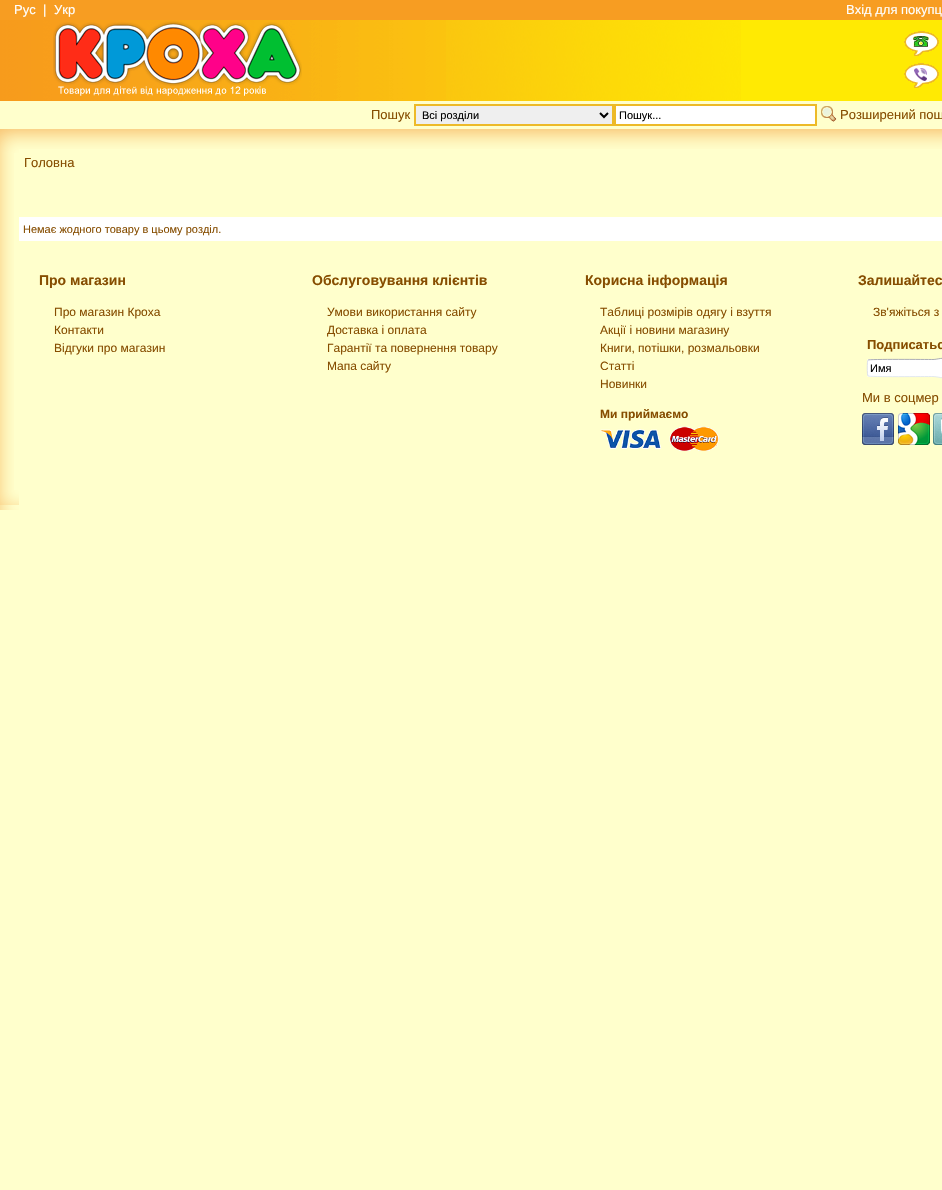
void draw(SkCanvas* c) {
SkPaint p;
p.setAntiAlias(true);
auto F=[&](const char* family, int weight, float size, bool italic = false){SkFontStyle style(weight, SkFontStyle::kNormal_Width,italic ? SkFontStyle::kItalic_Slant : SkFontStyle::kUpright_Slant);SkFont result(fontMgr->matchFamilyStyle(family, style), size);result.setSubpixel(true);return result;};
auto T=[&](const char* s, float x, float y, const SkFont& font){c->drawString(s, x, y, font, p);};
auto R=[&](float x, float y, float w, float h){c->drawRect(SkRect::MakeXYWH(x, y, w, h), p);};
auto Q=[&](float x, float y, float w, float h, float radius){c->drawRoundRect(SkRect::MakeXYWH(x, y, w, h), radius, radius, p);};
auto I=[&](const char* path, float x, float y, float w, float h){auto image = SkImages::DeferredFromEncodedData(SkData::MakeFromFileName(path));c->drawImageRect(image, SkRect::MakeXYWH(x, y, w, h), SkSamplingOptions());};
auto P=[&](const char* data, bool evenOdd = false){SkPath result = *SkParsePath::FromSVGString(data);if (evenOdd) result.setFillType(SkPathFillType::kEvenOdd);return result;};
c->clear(0xffffffcc);
p.setColor(0xfff79d22);
R(0,0,942,20);
auto f1 = F("Liberation Sans",400,13);
p.setColor(0xffffffff);
T("Рус",14,14,f1);
T("|",43,14,f1);
T("Укр",54,14,f1);
T("Вхід для покупц",846,14,f1);
p.setColor(0xffffea03);
R(741,20,201,81);
I("1.png",0,20,446,81);
I("2.png",53,21,249,75);
I("3.png",446,20,295,81);
I("4.png",904,31,35,25);
I("5.png",904,63,35,25);
p.setColor(0xff864d00);
T("Пошук",371,119,f1);
p.setColor(0xffefefef);
c->drawRect(SkRect::MakeXYWH(415,105,198,20),p);
p.setStroke(true);
p.setStrokeWidth(2);
p.setColor(0xffedba27);
c->drawRect(SkRect::MakeXYWH(415,105,198,20),p);
p.setColor(0xff000000);
c->drawPath(P("M600 113l4 4l4-4"),p);
auto f2 = F("Liberation Sans",400,11);
p.setStroke(false);
T("Всі розділи",422,119,f2);
p.setColor(0xffffffff);
c->drawRect(SkRect::MakeXYWH(615,105,201,20),p);
p.setStroke(true);
p.setColor(0xffedba27);
c->drawRect(SkRect::MakeXYWH(615,105,201,20),p);
p.setStroke(false);
p.setColor(0xff000000);
T("Пошук...",619,119,f2);
I("6.png",821,106,16,16);
p.setColor(0xff864d00);
T("Розширений пош",840,119,f1);
I("7.png",0,129,19,24);
I("8.png",19,129,923,20);
I("9.png",0,153,14,337);
T("Головна",24,167,f1);
p.setColor(0xffffffff);
R(19,217,923,24);
p.setColor(0xff864d00);
T("Немає жодного товару в цьому розділ.",23,233,f2);
auto f3 = F("Liberation Sans",700,14);
T("Про магазин",39,285,f3);
auto f4 = F("Liberation Sans",400,12);
T("Про магазин Кроха",54,316,f4);
T("Контакти",54,334,f4);
T("Відгуки про магазин",54,352,f4);
T("Обслуговування клієнтів",312,285,f3);
T("Умови використання сайту",327,316,f4);
T("Доставка і оплата",327,334,f4);
T("Гарантії та повернення товару",327,352,f4);
T("Мапа сайту",327,370,f4);
T("Корисна інформація",585,285,f3);
T("Таблиці розмірів одягу і взуття",600,316,f4);
T("Акції і новини магазину",600,334,f4);
T("Книги, потішки, розмальовки",600,352,f4);
T("Статті",600,370,f4);
T("Новинки",600,388,f4);
auto f5 = F("Liberation Sans",700,12);
T("Ми приймаємо",600,418,f5);
I("10.png",600,426,119,25);
T("Залишайтес",858,285,f3);
T("Зв'яжіться з",873,316,f4);
auto f6 = F("Liberation Sans",700,13);
T("Подписатьс",867,349,f6);
p.setColor(0xffffffff);
Q(867,359,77,18,2);
p.setStroke(true);
p.setStrokeWidth(1);
p.setColor(0xffacaeb4);
c->drawPath(P("M868 360c1-1 58.5-.5 65-.5c5 0 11-3 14 .5"),p);
p.setColor(0xffe3e9ef);
c->drawPath(P("M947 376c-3 3.5-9 .5-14 .5c-6.5 0-64 .5-65-.5"),p);
p.setColor(0xffdde1e7);
c->drawPath(P("M868 376c-1-1-1-15 0-16"),p);
p.setStroke(false);
p.setColor(0xff000000);
T("Имя",870,372,f2);
p.setColor(0xff864d00);
T("Ми в соцмер",862,402,f1);
I("11.png",862,413,32,32);
I("12.png",898,413,32,32);
I("13.png",933,413,9,32);
I("14.png",0,490,19,20);
}
